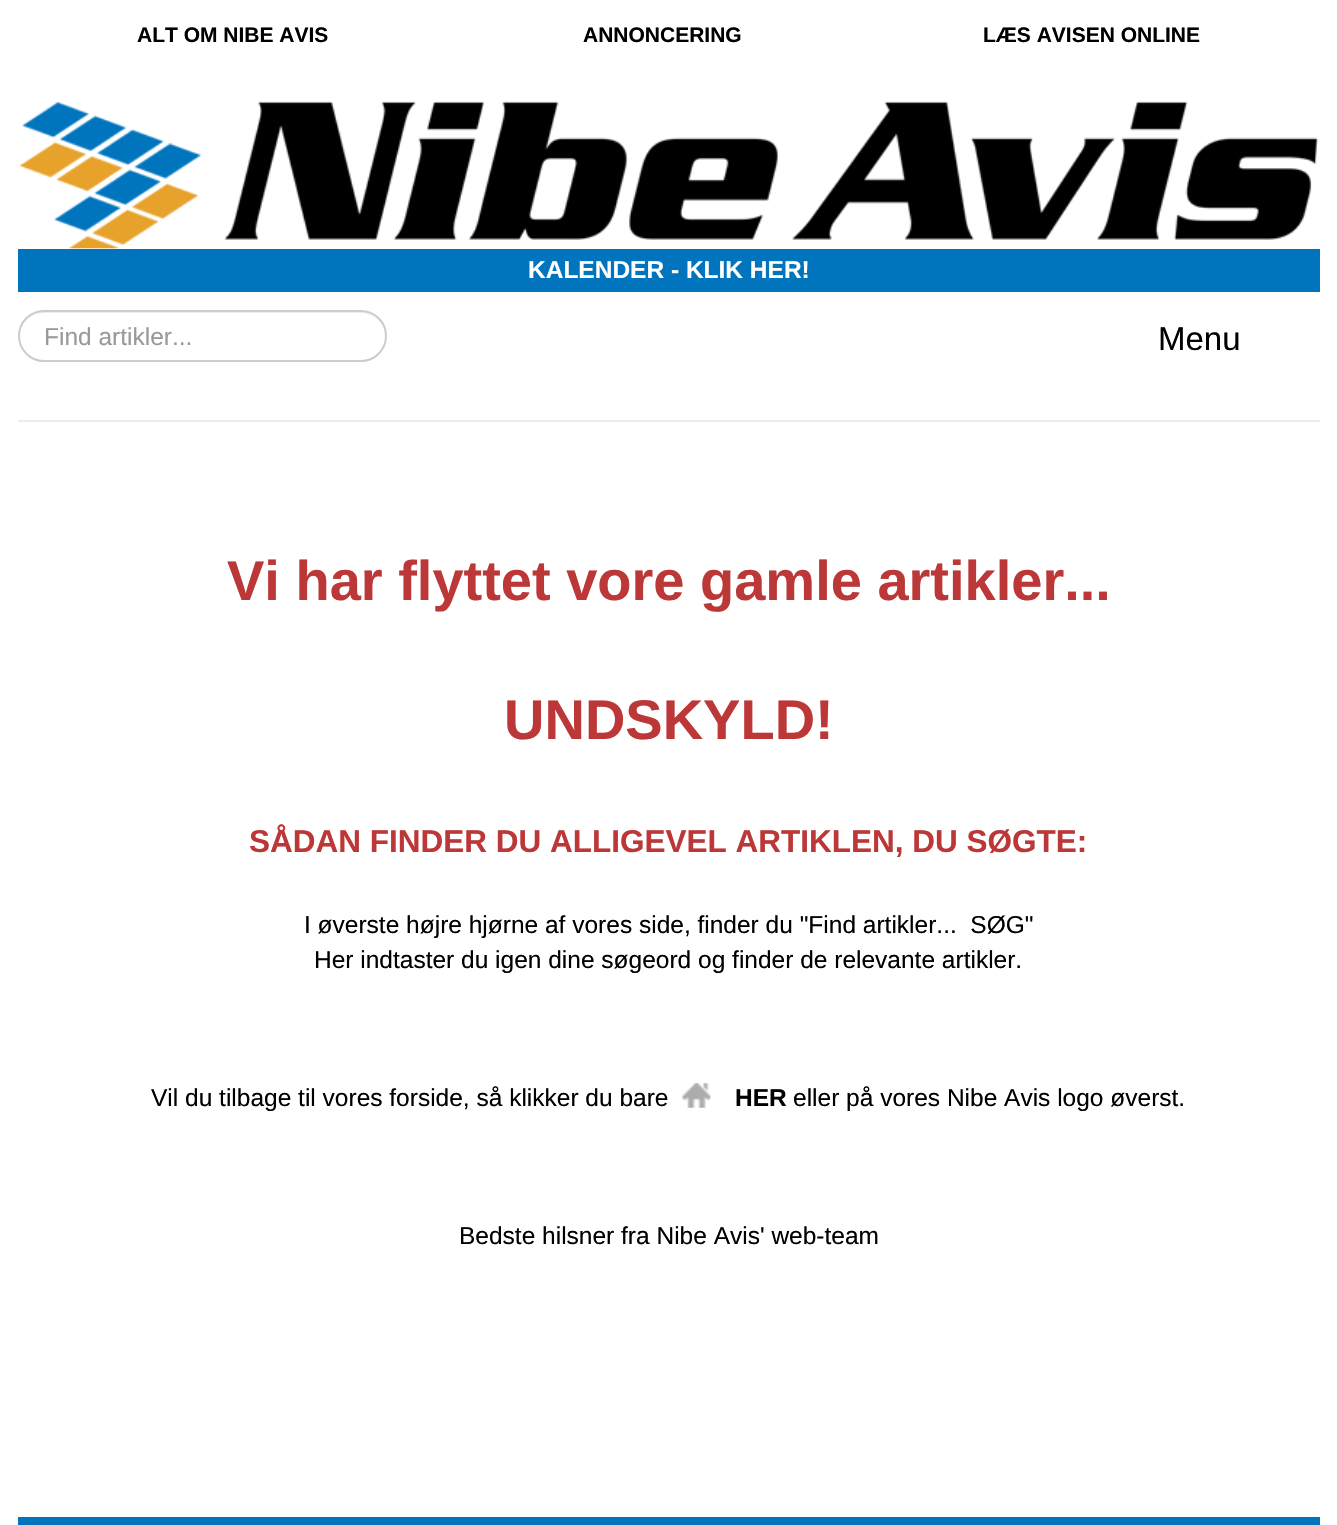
void draw(SkCanvas* c) {
SkPaint p;
p.setAntiAlias(true);
auto F=[&](const char* family, int weight, float size, bool italic = false){SkFontStyle style(weight, SkFontStyle::kNormal_Width,italic ? SkFontStyle::kItalic_Slant : SkFontStyle::kUpright_Slant);SkFont result(fontMgr->matchFamilyStyle(family, style), size);result.setSubpixel(true);return result;};
auto T=[&](const char* s, float x, float y, const SkFont& font){c->drawString(s, x, y, font, p);};
auto R=[&](float x, float y, float w, float h){c->drawRect(SkRect::MakeXYWH(x, y, w, h), p);};
auto I=[&](const char* path, float x, float y, float w, float h){auto image = SkImages::DeferredFromEncodedData(SkData::MakeFromFileName(path));c->drawImageRect(image, SkRect::MakeXYWH(x, y, w, h), SkSamplingOptions());};
auto P=[&](const char* data, bool evenOdd = false){SkPath result = *SkParsePath::FromSVGString(data);if (evenOdd) result.setFillType(SkPathFillType::kEvenOdd);return result;};
c->clear(0xffffffff);
auto f1 = F("Liberation Sans",700,21);
p.setColor(0xff000000);
T("ALT OM NIBE AVIS",137,42,f1);
T("ANNONCERING",583,42,f1);
T("LÆS AVISEN ONLINE",983,42,f1);
I("1.png",19,101,1300,148);
p.setColor(0xff0075be);
R(18,249,1302,43);
auto f2 = F("Liberation Sans",700,24.5);
p.setColor(0xffffffff);
T("KALENDER - KLIK HER!",528,278,f2);
p.setColor(0xffececec);
c->drawPath(P("M44 313h316c14 0 25 11 25 24c0-13-11-25-25-25h-316c-14 0-25 12-25 25c0-13 11-24 25-24z"),p);
p.setStroke(true);
p.setStrokeWidth(2);
p.setColor(0xffcccccc);
c->drawRoundRect(SkRect::MakeXYWH(19,311,367,50),25,25,p);
auto f3 = F("Liberation Sans",400,24.5);
p.setStroke(false);
p.setColor(0xff999999);
T("Find artikler...",44,345,f3);
auto f4 = F("Liberation Sans",400,33);
p.setColor(0xff000000);
T("Menu",1158,350,f4);
p.setColor(0xffececec);
R(18,420,1302,2);
auto f5 = F("Liberation Sans",700,56);
p.setColor(0xffbc3737);
T("Vi har flyttet vore gamle artikler...",227,600,f5);
T("UNDSKYLD!",504,739,f5);
auto f6 = F("Liberation Sans",700,31.5);
T("SÅDAN FINDER DU ALLIGEVEL ARTIKLEN, DU SØGTE:",249,852,f6);
p.setColor(0xff000000);
T("I øverste højre hjørne af vores side, finder du \"Find artikler...  SØG\"",304,933,f3);
T("Her indtaster du igen dine søgeord og finder de relevante artikler.",314,968,f3);
T("Vil du tilbage til vores forside, så klikker du bare",151,1106,f3);
I("2.png",682,1083,29,25);
T("HER",735,1106,f2);
T("eller på vores Nibe Avis logo øverst.",793,1106,f3);
T("Bedste hilsner fra Nibe Avis' web-team",459,1244,f3);
p.setColor(0xff0075be);
R(18,1517,1302,8);
}
